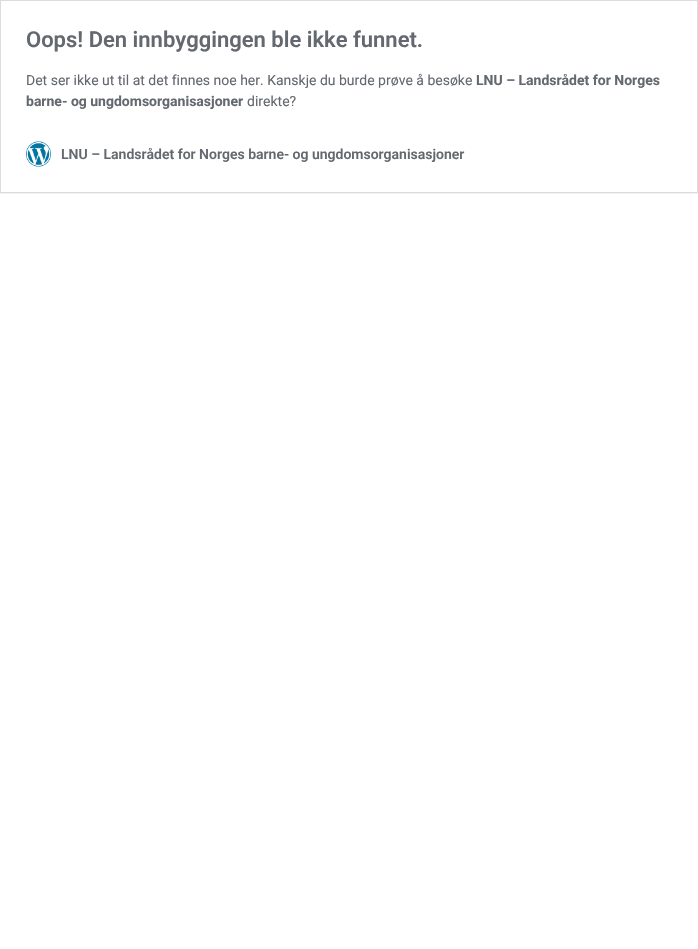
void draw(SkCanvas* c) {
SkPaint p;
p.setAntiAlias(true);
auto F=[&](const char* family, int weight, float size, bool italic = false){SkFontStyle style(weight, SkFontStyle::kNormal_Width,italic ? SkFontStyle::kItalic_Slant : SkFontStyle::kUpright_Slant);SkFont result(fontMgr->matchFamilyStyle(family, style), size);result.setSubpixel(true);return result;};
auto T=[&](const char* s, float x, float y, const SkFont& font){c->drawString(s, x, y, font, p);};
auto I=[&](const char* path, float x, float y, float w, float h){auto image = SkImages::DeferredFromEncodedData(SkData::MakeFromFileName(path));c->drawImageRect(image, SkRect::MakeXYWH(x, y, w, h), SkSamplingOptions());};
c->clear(0xffffffff);
c->save();
c->clipRect(SkRect::MakeXYWH(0,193,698,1));
p.setColor(0x0d000000);
p.setMaskFilter(SkMaskFilter::MakeBlur(kNormal_SkBlurStyle, .5));
c->drawRect(SkRect::MakeXYWH(0,1,698,193),p);
p.setMaskFilter(nullptr);
c->restore();
p.setStroke(true);
p.setStrokeWidth(1);
p.setColor(0xffdcdcde);
c->drawRect(SkRect::MakeXYWH(.5,.5,697,192),p);
auto f1 = F("Roboto",600,22);
p.setStroke(false);
p.setColor(0xff646970);
T("Oops! Den innbyggingen ble ikke funnet.",26,47,f1);
auto f2 = F("Roboto",400,14);
T("Det ser ikke ut til at det finnes noe her. Kanskje du burde prøve å besøke",26,85,f2);
auto f3 = F("Roboto",700,14);
T("LNU – Landsrådet for Norges",476,85,f3);
T("barne- og ungdomsorganisasjoner",26,106,f3);
T("direkte?",247,106,f2);
I("1.png",26,141,25,26);
auto f4 = F("Roboto",600,14);
T("LNU – Landsrådet for Norges barne- og ungdomsorganisasjoner",61,159,f4);
}
